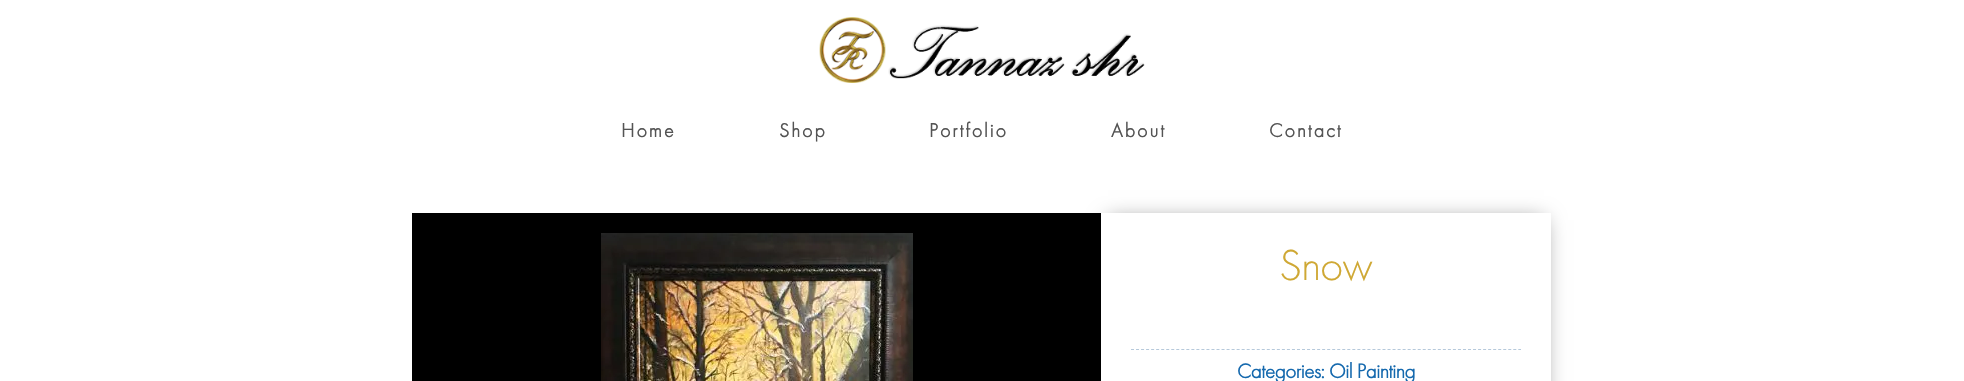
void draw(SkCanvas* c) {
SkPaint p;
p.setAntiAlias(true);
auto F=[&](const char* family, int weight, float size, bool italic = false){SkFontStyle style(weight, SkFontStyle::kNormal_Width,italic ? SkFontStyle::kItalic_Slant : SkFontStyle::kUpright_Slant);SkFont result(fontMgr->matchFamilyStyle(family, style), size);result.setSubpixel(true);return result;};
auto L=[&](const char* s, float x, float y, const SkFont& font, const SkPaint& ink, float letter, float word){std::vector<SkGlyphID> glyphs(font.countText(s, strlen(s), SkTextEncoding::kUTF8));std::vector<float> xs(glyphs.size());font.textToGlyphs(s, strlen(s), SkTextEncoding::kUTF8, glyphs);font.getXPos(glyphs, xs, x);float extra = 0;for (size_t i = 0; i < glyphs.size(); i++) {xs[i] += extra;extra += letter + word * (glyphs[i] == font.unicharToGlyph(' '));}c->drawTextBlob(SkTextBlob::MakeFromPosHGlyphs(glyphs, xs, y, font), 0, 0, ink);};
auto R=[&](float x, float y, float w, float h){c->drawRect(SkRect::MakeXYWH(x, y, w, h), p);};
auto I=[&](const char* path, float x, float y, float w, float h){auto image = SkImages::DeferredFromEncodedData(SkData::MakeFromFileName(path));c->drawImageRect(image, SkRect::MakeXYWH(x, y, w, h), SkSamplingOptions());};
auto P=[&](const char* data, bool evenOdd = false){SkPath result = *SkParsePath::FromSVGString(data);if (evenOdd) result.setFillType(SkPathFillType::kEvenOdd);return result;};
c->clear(0xffffffff);
I("1.png",819,17,326,66);
auto f1 = F("Futura PT",700,20);
p.setColor(0xff545454);
L("Home",621,137,f1,p,2,0);
L("Shop",779,137,f1,p,2,0);
L("Portfolio",929,137,f1,p,2,0);
L("About",1111,137,f1,p,2,0);
L("Contact",1269,137,f1,p,2,0);
p.setColor(0xff000000);
R(412,213,689,168);
I("2.png",601,233,312,148);
c->save();
c->clipPath(P("M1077 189h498v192h-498zm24 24h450v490h-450z",true),true);
p.setColor(0x7a000000);
p.setMaskFilter(SkMaskFilter::MakeBlur(kNormal_SkBlurStyle, 10));
c->drawRect(SkRect::MakeXYWH(1108,220,436,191),p);
p.setMaskFilter(nullptr);
c->restore();
auto f2 = F("Futura PT",300,45);
p.setColor(0xffcfa834);
L("Snow",1279,280,f2,p,-1,0);
p.setStroke(true);
p.setStrokeWidth(1);
p.setColor(0xffb6c9db);
p.setPathEffect(SkDashPathEffect::Make({{3,2.03f}}, 0));
c->drawPath(P("M1131 349.5h390"),p);
p.setPathEffect(nullptr);
auto f3 = F("Futura PT",700,21);
p.setStroke(false);
p.setColor(0xff1569ae);
L("Categories: Oil Painting",1237,378,f3,p,-.4,0);
}
